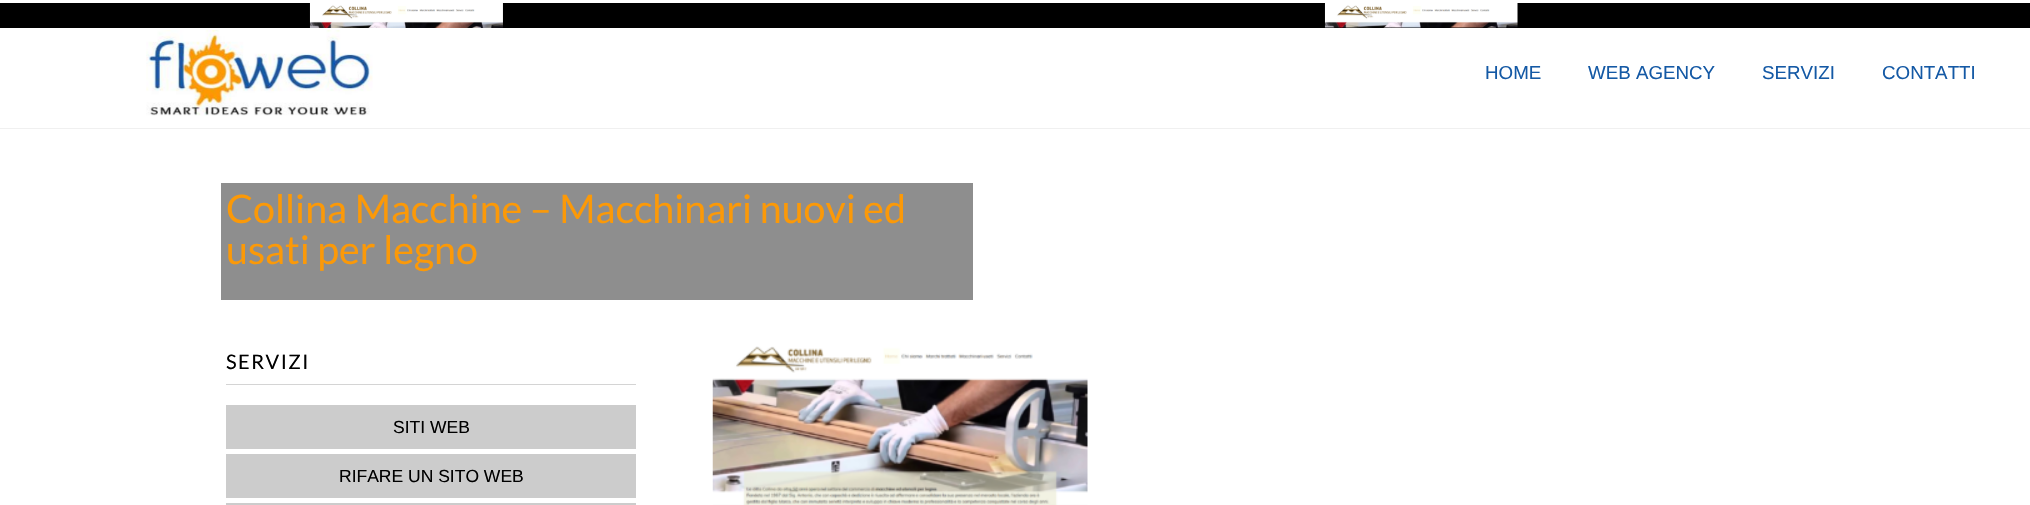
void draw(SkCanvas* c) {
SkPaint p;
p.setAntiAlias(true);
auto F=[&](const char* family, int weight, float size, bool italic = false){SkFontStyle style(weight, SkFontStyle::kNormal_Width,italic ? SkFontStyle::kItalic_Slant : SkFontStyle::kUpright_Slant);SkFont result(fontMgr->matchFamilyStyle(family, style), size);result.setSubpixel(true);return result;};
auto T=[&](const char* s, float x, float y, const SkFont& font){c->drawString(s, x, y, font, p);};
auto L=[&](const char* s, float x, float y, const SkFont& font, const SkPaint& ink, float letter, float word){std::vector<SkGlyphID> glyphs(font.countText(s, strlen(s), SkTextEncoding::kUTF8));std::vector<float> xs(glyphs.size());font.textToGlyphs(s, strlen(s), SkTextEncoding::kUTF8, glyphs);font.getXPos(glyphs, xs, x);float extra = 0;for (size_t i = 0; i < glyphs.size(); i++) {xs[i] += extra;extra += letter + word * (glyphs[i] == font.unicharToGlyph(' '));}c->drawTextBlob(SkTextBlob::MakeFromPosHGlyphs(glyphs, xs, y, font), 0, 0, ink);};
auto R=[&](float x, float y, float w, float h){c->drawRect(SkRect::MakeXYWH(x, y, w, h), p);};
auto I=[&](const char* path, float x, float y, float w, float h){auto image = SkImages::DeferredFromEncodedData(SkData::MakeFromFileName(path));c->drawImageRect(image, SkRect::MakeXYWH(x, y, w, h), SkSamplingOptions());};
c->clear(0xffffffff);
p.setColor(0xfff0f0f0);
R(0,128,2030,1);
p.setColor(0xff000000);
R(0,3,2030,25);
I("1.png",309,3,194,25);
I("2.png",1324,3,194,25);
I("3.png",146,30,227,86);
auto f1 = F("Liberation Sans",400,18.75);
p.setColor(0xff1459a5);
T("HOME",1485,79,f1);
T("WEB AGENCY",1588,79,f1);
T("SERVIZI",1762,79,f1);
T("CONTATTI",1882,79,f1);
p.setColor(0xff8e8e8e);
R(221,183,752,117);
auto f2 = F("Lato",400,39.4);
p.setColor(0xfffb9908);
T("Collina Macchine – Macchinari nuovi ed",226,223,f2);
T("usati per legno",226,264,f2);
p.setColor(0xffd4d4d4);
R(226,384,410,1);
auto f3 = F("Lato",400,20);
p.setColor(0xff000000);
L("SERVIZI",226,369,f3,p,1.5,0);
p.setColor(0xffcccccc);
R(226,405,410,44);
auto f4 = F("Liberation Sans",400,17.5);
p.setColor(0xff000000);
T("SITI WEB",393,433,f4);
p.setColor(0xffcccccc);
R(226,454,410,44);
p.setColor(0xff000000);
T("RIFARE UN SITO WEB",339,482,f4);
p.setColor(0xffcccccc);
R(226,503,410,2);
I("4.png",712,346,376,159);
}
